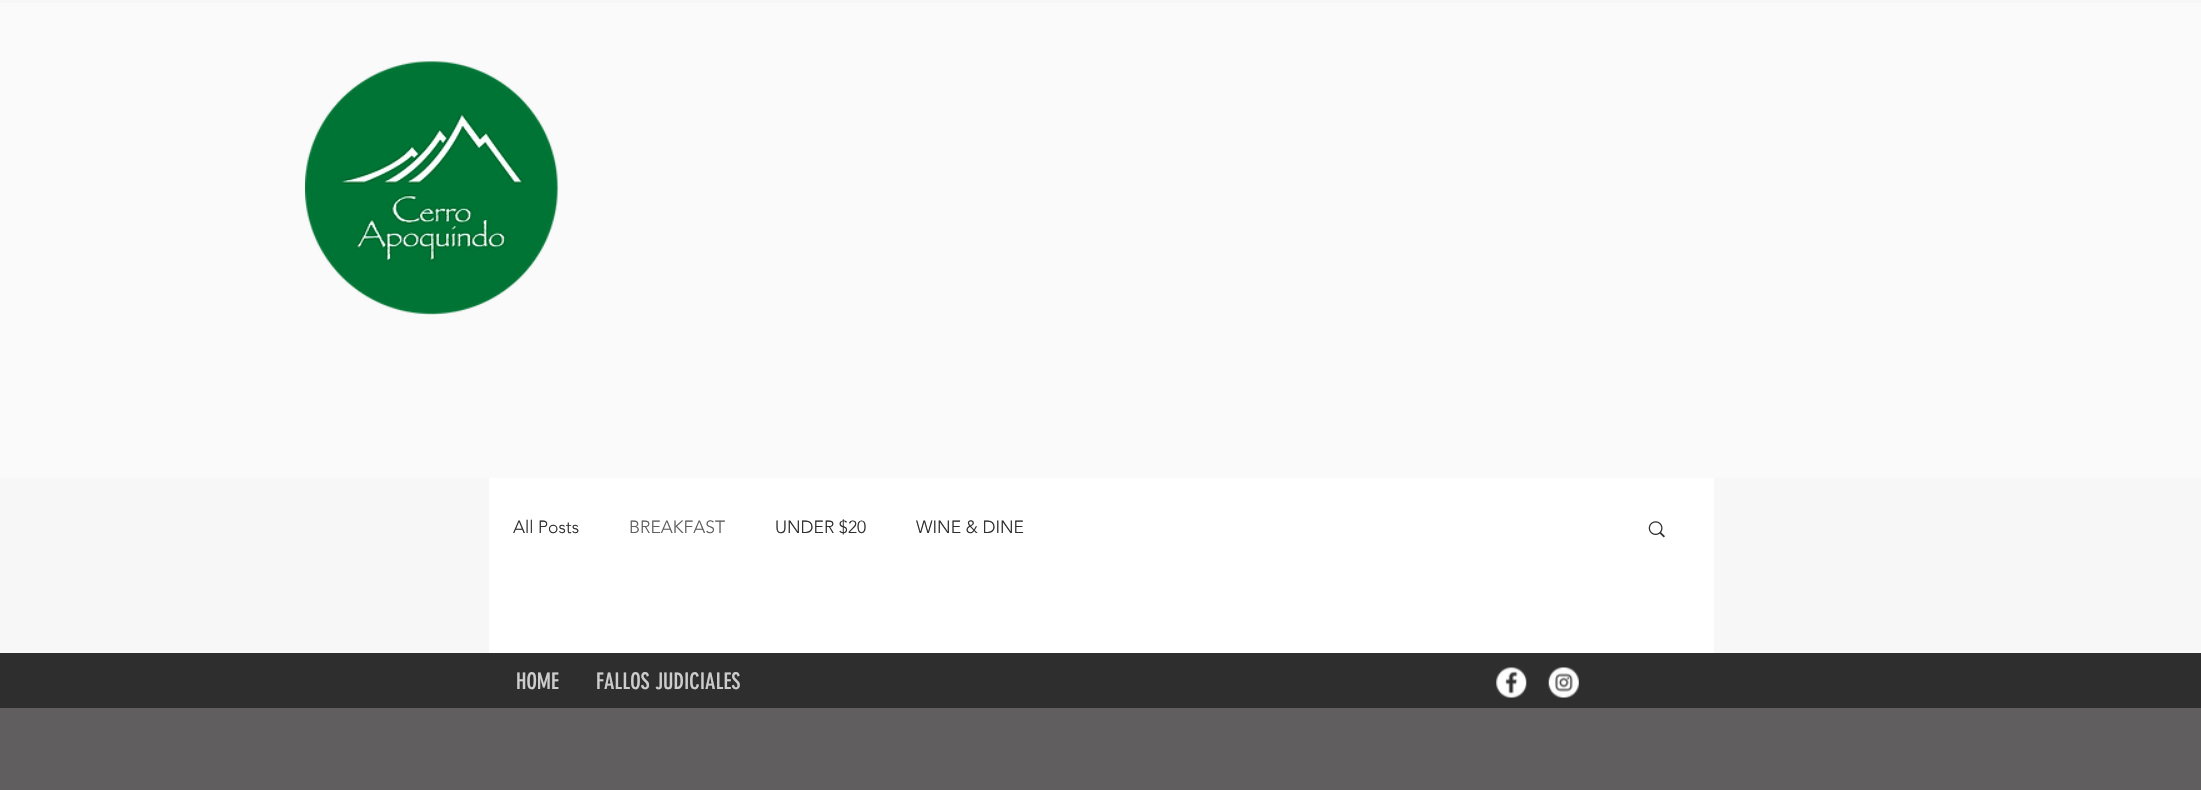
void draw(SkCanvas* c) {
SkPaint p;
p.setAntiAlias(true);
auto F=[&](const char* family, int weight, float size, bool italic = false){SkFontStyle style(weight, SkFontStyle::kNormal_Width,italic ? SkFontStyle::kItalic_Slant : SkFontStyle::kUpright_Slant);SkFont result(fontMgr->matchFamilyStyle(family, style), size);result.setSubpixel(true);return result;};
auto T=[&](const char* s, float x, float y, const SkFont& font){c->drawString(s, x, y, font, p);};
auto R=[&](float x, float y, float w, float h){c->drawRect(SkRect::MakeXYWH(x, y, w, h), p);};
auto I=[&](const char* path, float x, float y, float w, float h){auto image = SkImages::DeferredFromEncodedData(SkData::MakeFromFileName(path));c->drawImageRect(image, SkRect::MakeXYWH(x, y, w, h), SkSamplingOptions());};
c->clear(0xfff7f7f7);
p.setColor(0xfffafafa);
R(0,3,2201,475);
I("1.png",305,61,254,254);
p.setColor(0xffffffff);
R(489,478,1225,175);
auto f1 = F("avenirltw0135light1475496",300,17.5);
p.setColor(0xff2f2e2e);
T("All Posts",513,533,f1);
p.setColor(0xff605e5e);
T("BREAKFAST",629,533,f1);
p.setColor(0xff2f2e2e);
T("UNDER $20",775,533,f1);
T("WINE & DINE",916,533,f1);
I("2.png",1648,521,17,17);
R(0,653,2201,55);
auto f2 = F("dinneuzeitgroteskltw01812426",400,22.5);
p.setColor(0xffcccccc);
T("HOME",516,689,f2);
T("FALLOS JUDICIALES",596,689,f2);
I("3.png",1496,667,31,31);
I("4.png",1548,667,31,31);
p.setColor(0xff605e5e);
R(0,708,2201,82);
}
